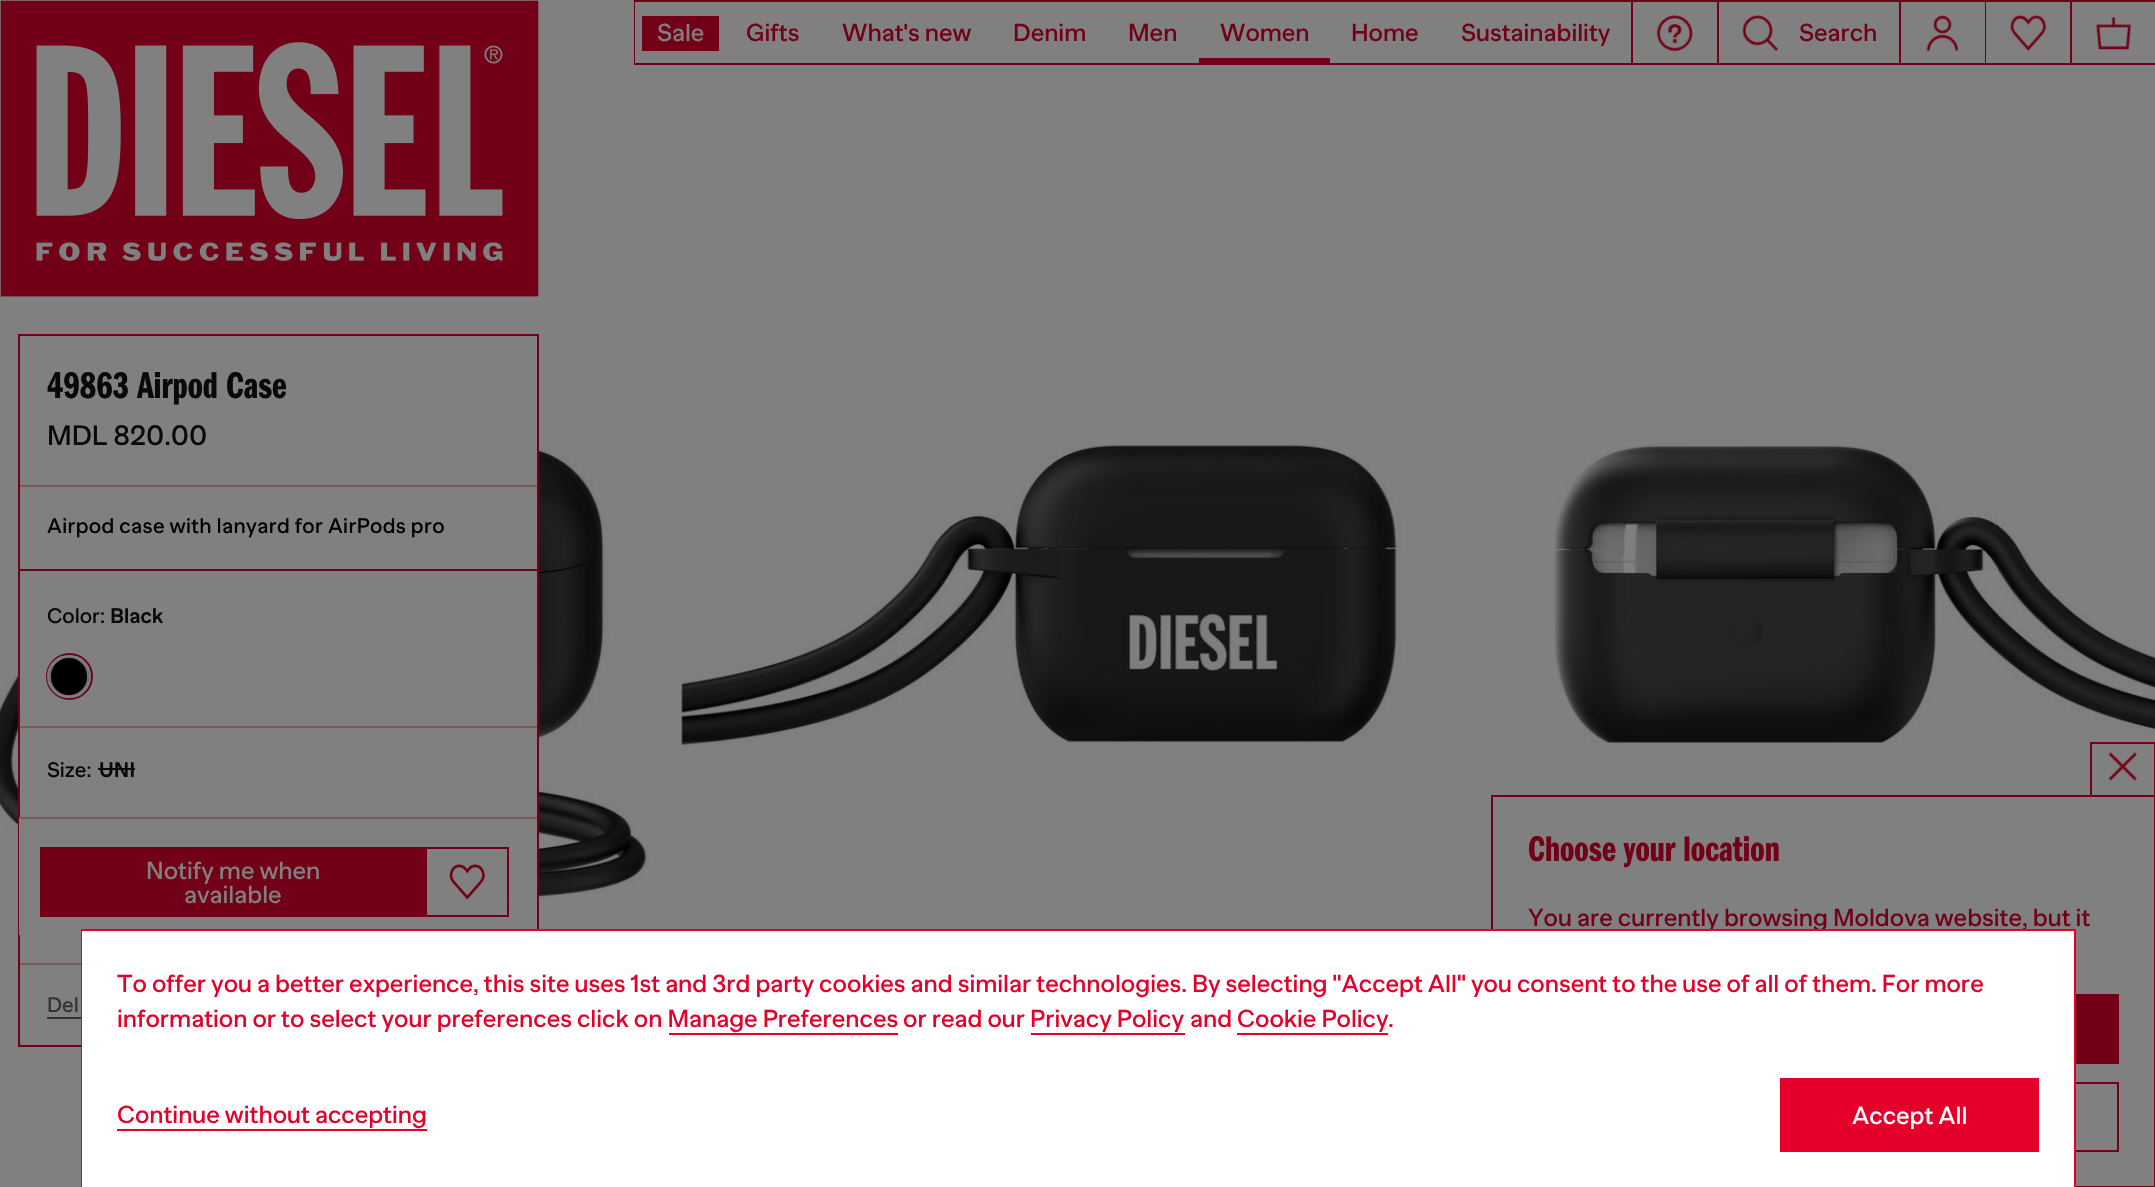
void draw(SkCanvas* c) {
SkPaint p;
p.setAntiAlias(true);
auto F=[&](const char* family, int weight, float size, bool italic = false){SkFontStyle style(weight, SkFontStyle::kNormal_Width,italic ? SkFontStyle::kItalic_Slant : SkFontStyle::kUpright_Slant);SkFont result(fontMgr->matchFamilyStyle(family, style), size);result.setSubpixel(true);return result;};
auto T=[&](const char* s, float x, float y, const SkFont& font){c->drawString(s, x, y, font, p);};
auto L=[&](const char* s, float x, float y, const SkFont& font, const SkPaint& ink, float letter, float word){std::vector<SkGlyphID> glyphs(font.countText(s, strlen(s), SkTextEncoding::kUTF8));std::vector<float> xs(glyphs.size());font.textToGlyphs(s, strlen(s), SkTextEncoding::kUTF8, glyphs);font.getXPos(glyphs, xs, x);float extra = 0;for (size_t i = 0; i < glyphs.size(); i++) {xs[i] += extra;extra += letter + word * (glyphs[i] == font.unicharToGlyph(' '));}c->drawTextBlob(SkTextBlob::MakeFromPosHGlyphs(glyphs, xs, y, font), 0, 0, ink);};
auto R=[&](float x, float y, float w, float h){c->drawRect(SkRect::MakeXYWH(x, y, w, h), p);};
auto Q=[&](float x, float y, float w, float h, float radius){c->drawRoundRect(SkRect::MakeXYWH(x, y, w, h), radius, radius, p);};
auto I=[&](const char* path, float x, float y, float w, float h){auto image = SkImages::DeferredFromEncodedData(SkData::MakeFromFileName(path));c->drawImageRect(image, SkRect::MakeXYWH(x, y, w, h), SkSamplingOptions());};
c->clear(0xff808080);
I("1.png",0,0,539,297);
p.setColor(0xff720016);
R(634,0,1,65);
R(635,0,996,2);
R(635,63,996,2);
R(642,16,77,35);
auto f1 = F("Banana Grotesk",500,24.5);
p.setColor(0xff808080);
T("Sale",657,41,f1);
p.setColor(0xff720016);
T("Gifts",746,41,f1);
T("What's new",842,41,f1);
T("Denim",1013,41,f1);
T("Men",1128,41,f1);
T("Women",1220,41,f1);
R(1199,58,131,5);
T("Home",1351,41,f1);
T("Sustainability",1461,41,f1);
R(1631,0,2,65);
R(1633,0,84,2);
R(1633,63,84,2);
I("2.png",1656,15,37,37);
R(1717,0,2,65);
R(1719,0,180,2);
R(1719,63,180,2);
I("3.png",1742,15,36,37);
T("Search",1799,41,f1);
R(1899,0,2,65);
R(1901,0,84,2);
R(1901,63,84,2);
I("4.png",1926,15,33,37);
R(1985,0,1,65);
R(1986,0,84,2);
R(1986,63,84,2);
I("5.png",2010,15,36,37);
R(2070,0,2,65);
R(2072,0,83,2);
R(2072,63,83,2);
I("6.png",2095,17,36,33);
I("8.png",0,443,650,458);
p.setColor(0xff808080);
R(20,443,517,456);
p.setStroke(true);
p.setStrokeWidth(2);
p.setColor(0xff720016);
c->drawRect(SkRect::MakeXYWH(19,335,519,711),p);
auto f2 = F("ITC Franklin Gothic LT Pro",600,38.5);
p.setStroke(false);
p.setColor(0xff090909);
T("49863 Airpod Case",47,398,f2);
auto f3 = F("Banana Grotesk",500,28);
T("MDL 820.00",47,445,f3);
p.setColor(0x4d720016);
R(19,485,518,2);
auto f4 = F("Banana Grotesk",500,21);
p.setColor(0xff000000);
L("Airpod case with lanyard for AirPods pro",47,533,f4,p,.35,0);
p.setColor(0xff720016);
R(19,569,518,2);
p.setColor(0x4d720016);
R(19,726,518,2);
p.setColor(0xff090909);
T("Color:",47,623,f4);
auto f5 = F("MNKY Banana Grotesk",700,21);
T("Black",110,623,f5);
p.setStroke(true);
p.setColor(0xff720016);
c->drawCircle(69.5,676.5,22.5,p);
p.setStroke(false);
p.setColor(0xff000000);
Q(47,655,44,43,21.5);
p.setStroke(true);
p.setColor(0xff707070);
c->drawRoundRect(SkRect::MakeXYWH(50,657,38,39),19,19,p);
p.setColor(0xff808080);
c->drawRoundRect(SkRect::MakeXYWH(48,656,42,41),20.5,20.5,p);
p.setStroke(false);
p.setColor(0xff090909);
T("Size:",47,777,f4);
T("UNI",99,777,f5);
R(98,768,37,2);
p.setColor(0xff808080);
R(19,819,1,116);
p.setColor(0xff7c5a60);
R(19,817,518,2);
p.setColor(0xff720016);
R(40,847,385,70);
p.setColor(0xff808080);
T("Notify me when",146,879,f1);
T("available",184,903,f1);
p.setStroke(true);
p.setColor(0xff720016);
c->drawRect(SkRect::MakeXYWH(426,848,82,68),p);
I("7.png",449,864,36,36);
p.setStroke(false);
p.setColor(0x4d720016);
R(19,963,62,2);
p.setColor(0xff333333);
T("Del",47,1012,f4);
R(47,1017,34,2);
I("9.png",681,444,721,301);
I("10.png",1554,445,601,298);
p.setColor(0xff720016);
R(2090,742,65,2);
R(2154,742,1,53);
R(2090,742,2,53);
I("11.png",2108,752,29,29);
p.setStroke(true);
c->drawRect(SkRect::MakeXYWH(1492,796,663,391),p);
auto f6 = F("ITC Franklin Gothic LT Pro",600,36.75);
p.setStroke(false);
T("Choose your location",1528,861,f6);
T("You are currently browsing Moldova website, but it",1528,926,f1);
R(2076,994,43,70);
p.setStroke(true);
c->drawRect(SkRect::MakeXYWH(1529,1083,589,68),p);
p.setColor(0xffe4002b);
c->drawRect(SkRect::MakeXYWH(82,930,1993,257),p);
p.setStroke(false);
p.setColor(0xffffffff);
R(82,931,1992,256);
p.setColor(0xffe4002b);
T("To offer you a better experience, this site uses 1st and 3rd party cookies and similar technologies. By selecting \"Accept All\" you consent to the use of all of them. For more",117,992,f1);
T("information or to select your preferences click on Manage Preferences",117,1027,f1);
T("or read our Privacy Policy",903,1027,f1);
T("and Cookie Policy",1190,1027,f1);
T(".",1388,1027,f1);
R(669,1033,229,2);
R(1031,1033,154,2);
R(1237,1033,151,2);
T("Continue without accepting",117,1123,f1);
R(117,1129,310,2);
R(1780,1078,259,74);
p.setColor(0xffffffff);
T("Accept All",1852,1124,f1);
}
